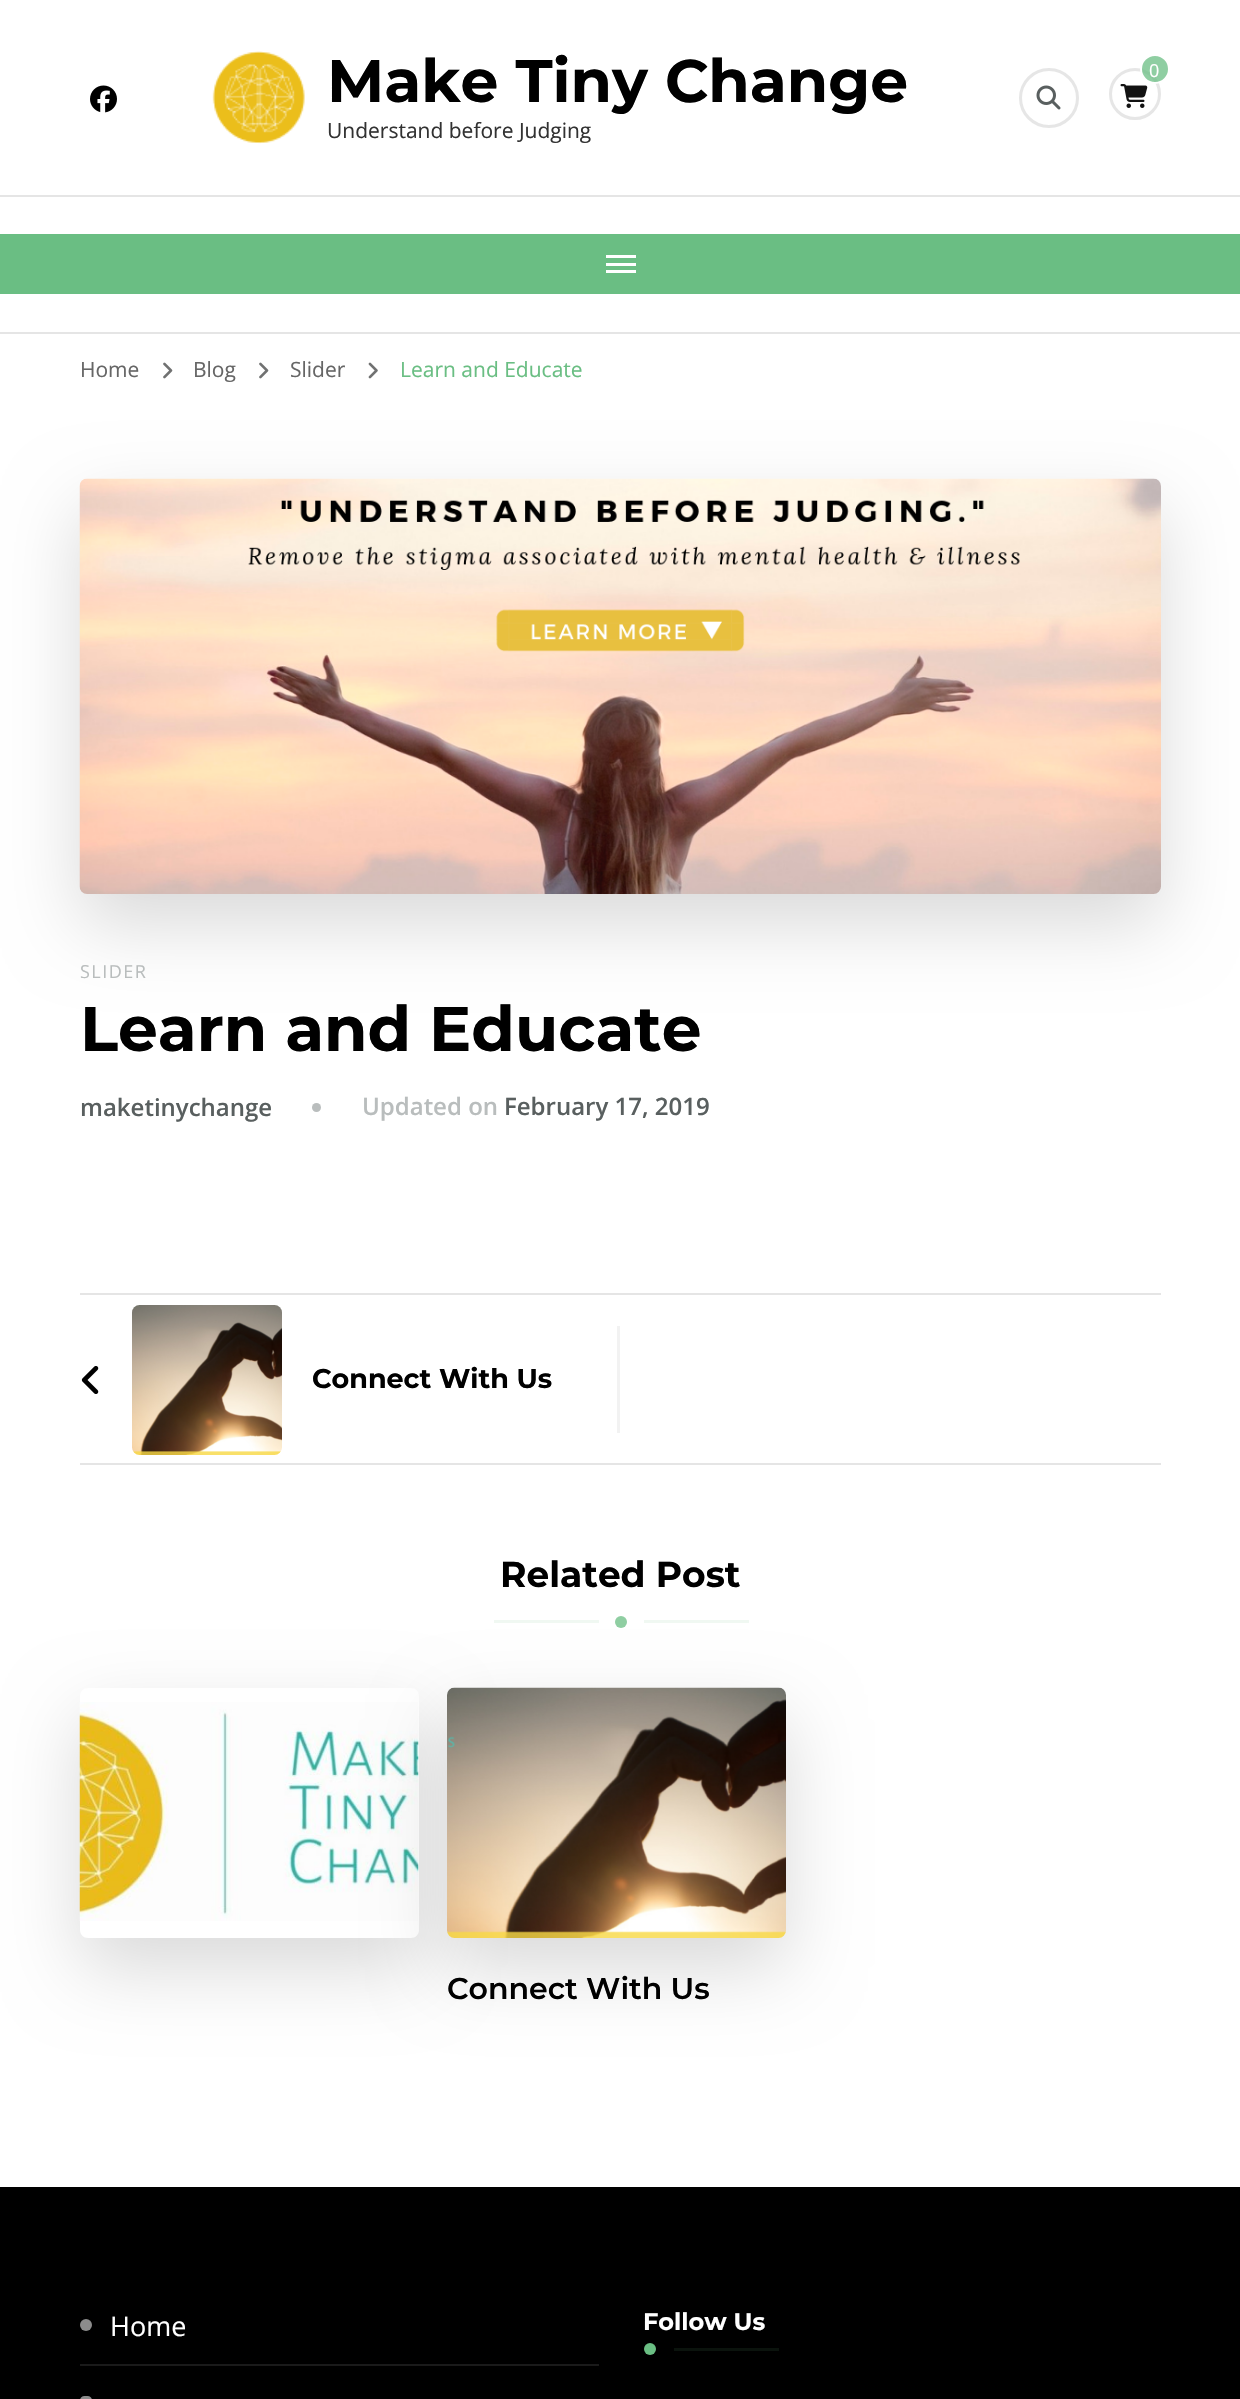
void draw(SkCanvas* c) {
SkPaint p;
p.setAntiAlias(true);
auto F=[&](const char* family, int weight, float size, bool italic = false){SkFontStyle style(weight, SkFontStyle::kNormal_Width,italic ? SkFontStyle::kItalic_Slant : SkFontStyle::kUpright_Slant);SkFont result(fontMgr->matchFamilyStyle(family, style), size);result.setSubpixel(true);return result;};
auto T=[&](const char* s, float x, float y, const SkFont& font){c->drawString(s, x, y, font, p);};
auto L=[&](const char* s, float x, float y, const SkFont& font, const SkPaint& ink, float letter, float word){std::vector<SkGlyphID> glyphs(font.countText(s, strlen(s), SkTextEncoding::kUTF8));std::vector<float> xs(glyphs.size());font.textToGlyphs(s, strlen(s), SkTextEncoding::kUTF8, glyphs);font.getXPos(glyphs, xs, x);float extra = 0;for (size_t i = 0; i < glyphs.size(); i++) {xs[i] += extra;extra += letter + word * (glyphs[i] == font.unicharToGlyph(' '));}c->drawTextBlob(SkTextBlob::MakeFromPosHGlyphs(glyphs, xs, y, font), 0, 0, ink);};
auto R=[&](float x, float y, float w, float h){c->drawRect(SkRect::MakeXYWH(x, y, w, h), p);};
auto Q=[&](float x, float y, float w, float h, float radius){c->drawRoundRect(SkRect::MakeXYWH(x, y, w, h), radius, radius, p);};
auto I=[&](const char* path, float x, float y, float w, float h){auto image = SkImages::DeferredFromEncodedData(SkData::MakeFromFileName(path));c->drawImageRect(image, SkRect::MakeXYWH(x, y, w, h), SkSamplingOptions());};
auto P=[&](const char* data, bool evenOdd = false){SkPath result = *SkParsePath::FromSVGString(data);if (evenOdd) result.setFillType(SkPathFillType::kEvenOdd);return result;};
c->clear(0xffffffff);
p.setColor(0xffe5e5e5);
R(0,332,1240,2);
R(0,195,1240,2);
I("1.png",212,51,93,93);
auto f1 = F("Montserrat",700,60);
p.setColor(0xff000000);
T("Make Tiny Change",327,102,f1);
auto f2 = F("Open Sans",400,21);
p.setColor(0xff323232);
T("Understand before Judging",327,138,f2);
p.setStroke(true);
p.setStrokeWidth(3);
p.setColor(0xffe6e6e6);
c->drawCircle(1049,98,28.5,p);
I("2.png",1036,85,25,25);
c->drawCircle(1135,94,24.5,p);
p.setStroke(false);
p.setColor(0xbf6abe83);
c->drawCircle(1155,69,14,p);
p.setStroke(true);
p.setStrokeWidth(2);
p.setColor(0xffffffff);
c->drawCircle(1155,69,14,p);
auto f3 = F("Open Sans",400,18);
p.setStroke(false);
T("0",1149,77,f3);
I("3.png",1120,84,28,24);
I("4.png",90,85,27,28);
p.setColor(0xff6abe83);
R(0,234,1240,60);
p.setColor(0xffffffff);
R(606,255,30,3);
R(606,263,30,3);
R(606,270,30,3);
p.setColor(0xff666666);
T("Home",80,377,f2);
I("5.png",163,362,10,17);
T("Blog",193,377,f2);
I("5.png",259,362,10,17);
T("Slider",290,377,f2);
I("6.png",368,362,10,17);
p.setColor(0xff6abe83);
T("Learn and Educate",400,377,f2);
p.setColor(0x26000000);
p.setMaskFilter(SkMaskFilter::MakeBlur(kNormal_SkBlurStyle, 37.5));
c->drawRoundRect(SkRect::MakeXYWH(80,509,1081,415),8,8,p);
p.setMaskFilter(nullptr);
I("7.png",79,478,1082,416);
p.setColor(0xffb9bdbd);
L("SLIDER",80,978,f3,p,1.5,0);
auto f4 = F("Montserrat",700,63);
p.setColor(0xff000000);
T("Learn and Educate",80,1051,f4);
auto f5 = F("Open Sans",600,24);
p.setColor(0xff595f5f);
T("maketinychange",80,1116,f5);
p.setColor(0xffb9bdbd);
c->drawCircle(316.5,1107.5,4.5,p);
T("Updated on",362,1115,f5);
p.setColor(0xff595f5f);
T("February 17, 2019",504,1115,f5);
p.setColor(0xffe5e5e5);
R(80,1293,1081,2);
R(80,1463,1081,2);
I("8.png",81,1366,18,28);
I("9.png",132,1305,150,150);
auto f6 = F("Montserrat",700,27);
p.setColor(0xff000000);
T("Connect With Us",312,1388,f6);
p.setColor(0xfff2f2f2);
R(617,1326,3,107);
auto f7 = F("Montserrat",700,36);
p.setColor(0xff000000);
T("Related Post",500,1587,f7);
c->save();
c->clipPath(P("M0 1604h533v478h-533zm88 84h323c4.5 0 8 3.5 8 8v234c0 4.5-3.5 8-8 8h-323c-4.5 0-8-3.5-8-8v-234c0-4.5 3.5-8 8-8z",true),true);
p.setColor(0x26000000);
p.setMaskFilter(SkMaskFilter::MakeBlur(kNormal_SkBlurStyle, 37.5));
c->drawRoundRect(SkRect::MakeXYWH(80,1718,339,250),8,8,p);
p.setMaskFilter(nullptr);
c->restore();
I("10.png",79,1702,340,219);
p.setMaskFilter(SkMaskFilter::MakeBlur(kNormal_SkBlurStyle, 37.5));
c->drawRoundRect(SkRect::MakeXYWH(447,1718,339,250),8,8,p);
p.setMaskFilter(nullptr);
p.setColor(0xfff0f8f2);
R(494,1620,105,3);
R(644,1620,105,3);
p.setColor(0xff8fcea2);
c->drawCircle(621,1622,6,p);
I("11.png",447,1687,339,251);
auto f8 = F("Montserrat",600,30);
p.setColor(0xff000000);
T("Connect With Us",447,1999,f8);
R(0,2187,1240,212);
p.setColor(0xff1a1a1a);
R(80,2364,519,2);
p.setColor(0xff8c8c8c);
c->drawCircle(86,2325,6,p);
auto f9 = F("Open Sans",400,27);
p.setColor(0xffffffff);
T("Home",110,2336,f9);
p.setColor(0xff8c8c8c);
Q(80,2396,12,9,6);
auto f10 = F("Montserrat",700,24);
p.setColor(0xffffffff);
T("Follow Us",643,2330,f10);
p.setColor(0xff6abe83);
c->drawCircle(650,2349,6,p);
p.setColor(0xff0b130d);
R(674,2348,105,3);
}
